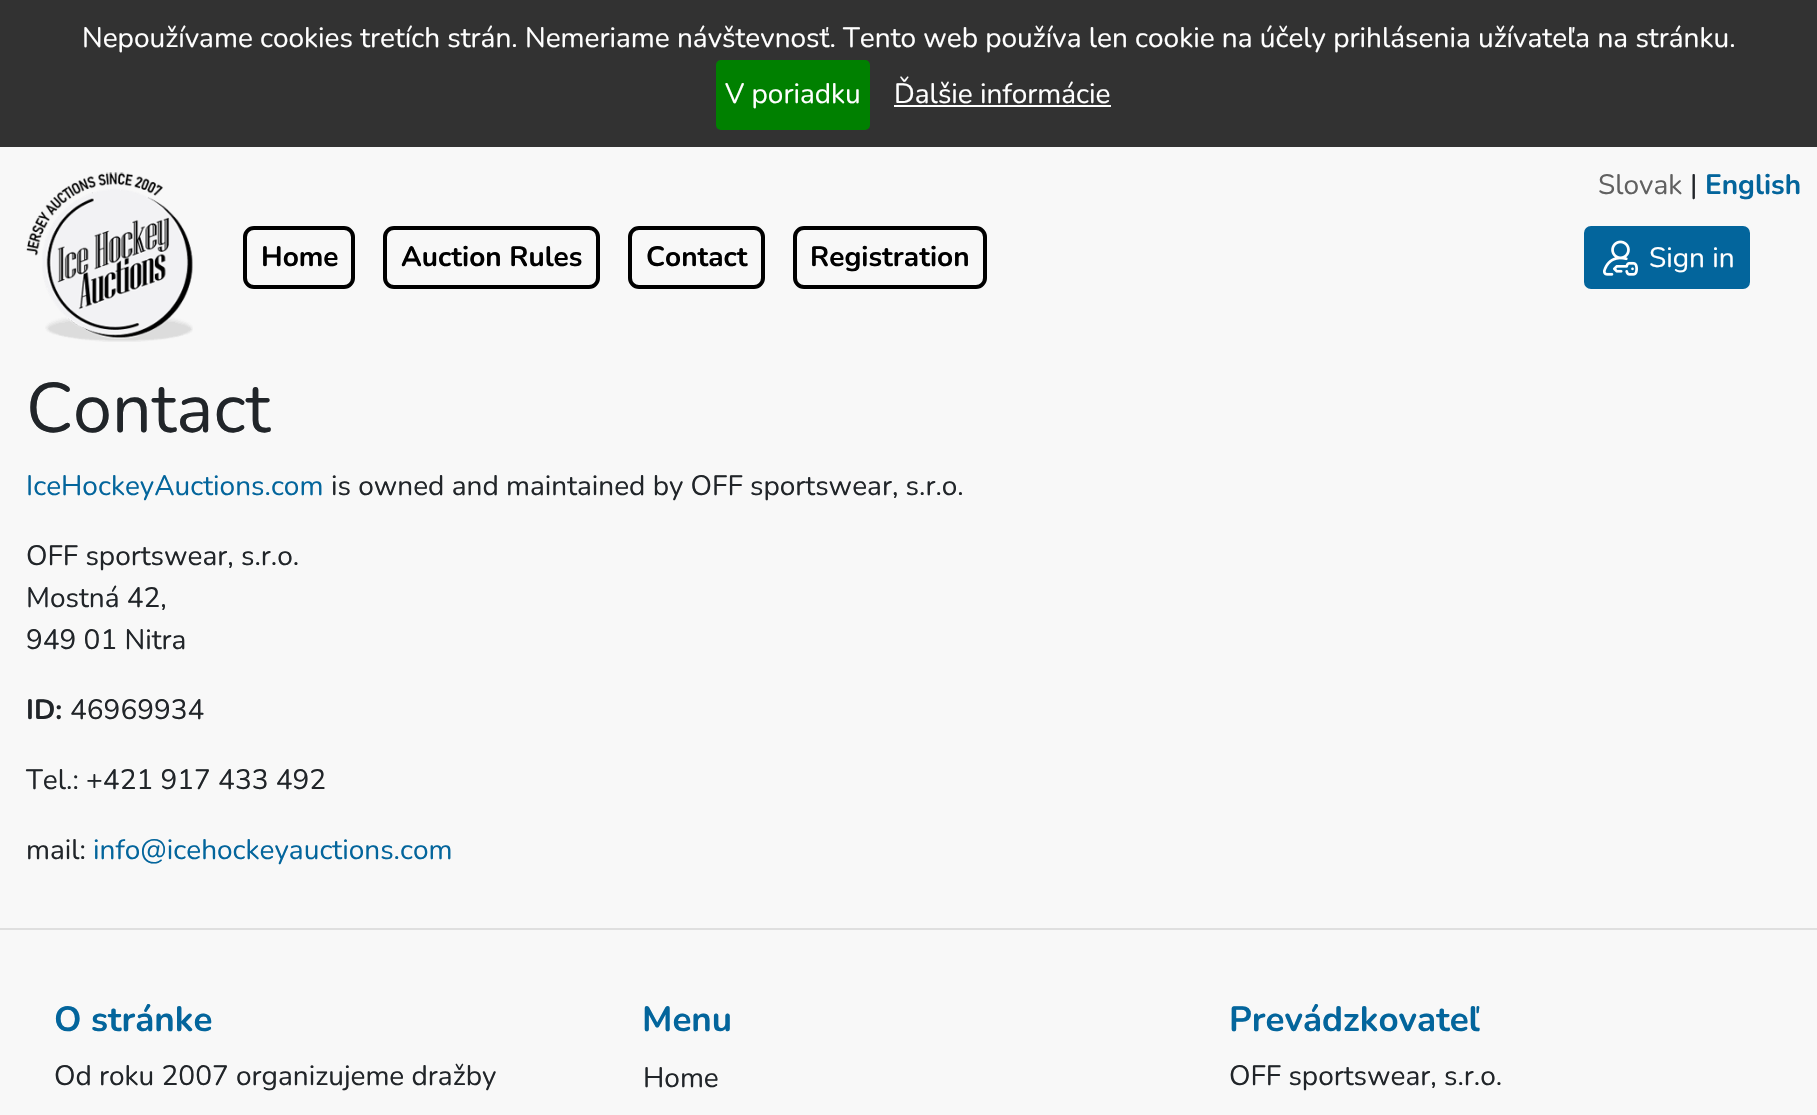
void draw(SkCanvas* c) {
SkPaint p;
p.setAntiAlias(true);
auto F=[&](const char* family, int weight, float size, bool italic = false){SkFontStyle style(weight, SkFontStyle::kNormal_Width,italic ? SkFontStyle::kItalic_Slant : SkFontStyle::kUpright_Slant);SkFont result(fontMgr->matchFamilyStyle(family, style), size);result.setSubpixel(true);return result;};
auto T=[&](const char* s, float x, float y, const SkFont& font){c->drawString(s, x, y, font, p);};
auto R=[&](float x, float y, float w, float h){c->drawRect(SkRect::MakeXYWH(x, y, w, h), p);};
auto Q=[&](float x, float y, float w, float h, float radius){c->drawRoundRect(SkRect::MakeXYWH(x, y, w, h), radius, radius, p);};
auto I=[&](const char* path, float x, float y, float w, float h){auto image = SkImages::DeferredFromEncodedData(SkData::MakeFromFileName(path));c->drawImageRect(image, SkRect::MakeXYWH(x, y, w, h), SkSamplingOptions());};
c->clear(0xfff8f8f8);
p.setColor(0xff323232);
R(0,0,1817,147);
auto f1 = F("Nunito",400,28);
p.setColor(0xffffffff);
T("Nepoužívame cookies tretích strán. Nemeriame návštevnosť. Tento web používa len cookie na účely prihlásenia užívateľa na stránku.",82,47,f1);
p.setColor(0xff008000);
Q(716,60,154,70,5);
p.setColor(0xffffffff);
T("V poriadku",725,103,f1);
T("Ďalšie informácie",894,103,f1);
R(894,105,217,2);
p.setColor(0xff606060);
T("Slovak",1598,194,f1);
p.setColor(0xff212529);
T("|",1690,194,f1);
auto f2 = F("Nunito",700,28);
p.setColor(0xff03659c);
T("English",1705,194,f2);
I("1.png",26,172,167,170);
p.setStroke(true);
p.setStrokeWidth(4);
p.setColor(0xff000000);
c->drawRoundRect(SkRect::MakeXYWH(245,228,108,59),9,9,p);
p.setStroke(false);
T("Home",261,266,f2);
p.setStroke(true);
c->drawRoundRect(SkRect::MakeXYWH(385,228,213,59),9,9,p);
p.setStroke(false);
T("Auction Rules",401,266,f2);
p.setStroke(true);
c->drawRoundRect(SkRect::MakeXYWH(630,228,133,59),9,9,p);
p.setStroke(false);
T("Contact",646,266,f2);
p.setStroke(true);
c->drawRoundRect(SkRect::MakeXYWH(795,228,190,59),9,9,p);
p.setStroke(false);
T("Registration",810,266,f2);
p.setColor(0xff03659c);
c->drawRoundRect(SkRect::MakeXYWH(1585,227,164,61),6,6,p);
p.setStroke(true);
p.setStrokeWidth(2);
c->drawRoundRect(SkRect::MakeXYWH(1585,227,164,61),6,6,p);
I("2.png",1603,240,35,36);
p.setStroke(false);
p.setColor(0xffffffff);
T("Sign in",1649,267,f1);
auto f3 = F("Nunito",400,70);
p.setColor(0xff212529);
T("Contact",26,432,f3);
p.setColor(0xff03659c);
T("IceHockeyAuctions.com",26,495,f1);
p.setColor(0xff212529);
T("is owned and maintained by OFF sportswear, s.r.o.",331,495,f1);
T("OFF sportswear, s.r.o.",26,565,f1);
T("Mostná 42,",26,607,f1);
T("949 01 Nitra",26,649,f1);
T("ID:",26,719,f2);
T("46969934",70,719,f1);
T("Tel.: +421 917 433 492",26,789,f1);
T("mail:",26,859,f1);
p.setColor(0xff03659c);
T("info@icehockeyauctions.com",93,859,f1);
p.setColor(0xffdfdfdf);
R(0,928,1817,2);
auto f4 = F("Nunito",700,35);
p.setColor(0xff03659c);
T("O stránke",54,1031,f4);
p.setColor(0xff212529);
T("Od roku 2007 organizujeme dražby",54,1085,f1);
p.setColor(0xff03659c);
T("Menu",642,1031,f4);
p.setColor(0xff212529);
T("Home",643,1087,f1);
p.setColor(0xff03659c);
T("Prevádzkovateľ",1229,1031,f4);
p.setColor(0xff212529);
T("OFF sportswear, s.r.o.",1229,1085,f1);
}
